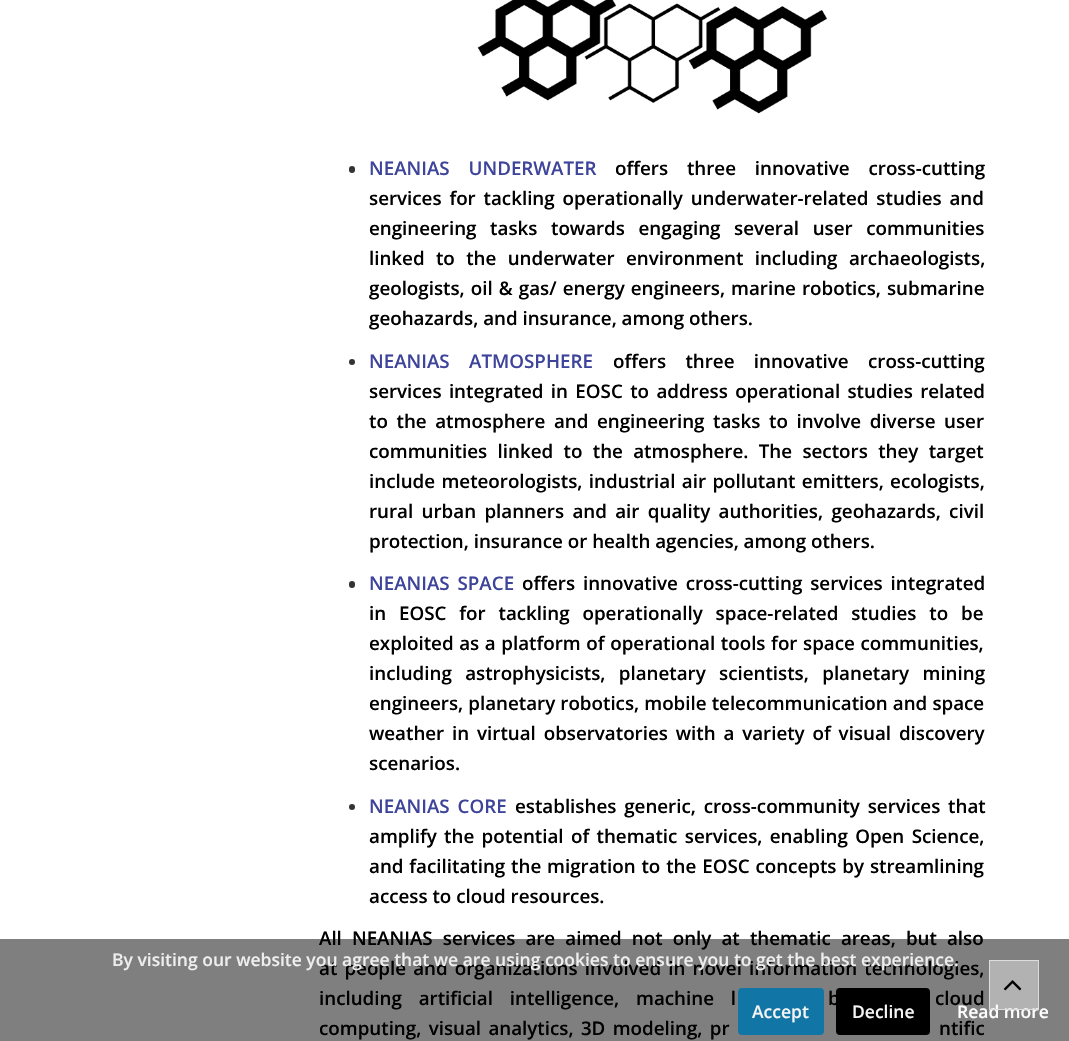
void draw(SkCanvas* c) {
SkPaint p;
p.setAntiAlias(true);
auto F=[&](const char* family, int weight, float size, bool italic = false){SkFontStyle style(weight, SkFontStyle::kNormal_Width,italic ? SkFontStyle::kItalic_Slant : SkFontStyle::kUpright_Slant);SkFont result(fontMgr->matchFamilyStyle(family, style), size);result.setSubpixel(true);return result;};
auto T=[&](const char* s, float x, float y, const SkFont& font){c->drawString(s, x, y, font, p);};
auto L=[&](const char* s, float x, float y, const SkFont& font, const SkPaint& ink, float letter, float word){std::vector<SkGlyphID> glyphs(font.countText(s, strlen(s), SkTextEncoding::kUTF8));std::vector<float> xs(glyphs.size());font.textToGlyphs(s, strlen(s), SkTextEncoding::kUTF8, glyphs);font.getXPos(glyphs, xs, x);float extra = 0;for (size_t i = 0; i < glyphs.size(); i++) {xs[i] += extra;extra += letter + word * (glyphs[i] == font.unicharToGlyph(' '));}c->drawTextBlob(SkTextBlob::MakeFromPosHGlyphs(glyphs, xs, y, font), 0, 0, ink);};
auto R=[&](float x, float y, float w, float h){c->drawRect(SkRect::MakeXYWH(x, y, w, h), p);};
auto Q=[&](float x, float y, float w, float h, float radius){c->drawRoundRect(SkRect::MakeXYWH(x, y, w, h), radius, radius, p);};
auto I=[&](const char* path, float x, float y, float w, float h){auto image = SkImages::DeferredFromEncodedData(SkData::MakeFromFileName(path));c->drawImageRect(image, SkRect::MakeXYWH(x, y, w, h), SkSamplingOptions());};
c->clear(0xffffffff);
I("1.png",477,0,351,114);
p.setColor(0xff333333);
Q(349,166,6,7,3);
auto f1 = F("Open Sans",600,18.75);
p.setColor(0xff3d449a);
L("NEANIAS UNDERWATER",369,175,f1,p,0,14);
p.setColor(0xff000000);
L("offers three innovative cross-cutting",615,175,f1,p,0,14);
L("services for tackling operationally underwater-related studies and",369,205,f1,p,0,3);
L("engineering tasks towards engaging several user communities",369,235,f1,p,0,8.75);
L("linked to the underwater environment including archaeologists,",369,265,f1,p,0,6.5);
L("geologists, oil & gas/ energy engineers, marine robotics, submarine",369,295,f1,p,0,1.25);
T("geohazards, and insurance, among others.",369,325,f1);
p.setColor(0xff333333);
c->drawCircle(352,362,3,p);
p.setColor(0xff3d449a);
L("NEANIAS ATMOSPHERE",369,368,f1,p,0,14.5);
p.setColor(0xff000000);
L("offers three innovative cross-cutting",613,368,f1,p,0,14.5);
L("services integrated in EOSC to address operational studies related",369,398,f1,p,0,2.5);
L("to the atmosphere and engineering tasks to involve diverse user",369,428,f1,p,0,3.75);
L("communities linked to the atmosphere. The sectors they target",369,458,f1,p,0,5.5);
L("include meteorologists, industrial air pollutant emitters, ecologists,",369,488,f1,p,0,1.5);
L("rural urban planners and air quality authorities, geohazards, civil",369,518,f1,p,0,3.5);
T("protection, insurance or health agencies, among others.",369,548,f1);
p.setColor(0xff333333);
Q(349,581,6,7,3);
p.setColor(0xff3d449a);
L("NEANIAS SPACE",369,590,f1,p,0,3);
p.setColor(0xff000000);
L("offers innovative cross-cutting services integrated",522,590,f1,p,0,3);
L("in EOSC for tackling operationally space-related studies to be",369,620,f1,p,0,8);
L("exploited as a platform of operational tools for space communities,",369,650,f1,p,0,.75);
L("including astrophysicists, planetary scientists, planetary mining",369,680,f1,p,0,8.5);
L("engineers, planetary robotics, mobile telecommunication and space",369,710,f1,p,0,.25);
L("weather in virtual observatories with a variety of visual discovery",369,740,f1,p,0,3);
T("scenarios.",369,770,f1);
p.setColor(0xff333333);
c->drawCircle(352,807,3,p);
p.setColor(0xff3d449a);
L("NEANIAS CORE",369,813,f1,p,0,3);
p.setColor(0xff000000);
L("establishes generic, cross-community services that",515,813,f1,p,0,3);
L("amplify the potential of thematic services, enabling Open Science,",369,843,f1,p,0,2.5);
L("and facilitating the migration to the EOSC concepts by streamlining",369,873,f1,p,0,1);
T("access to cloud resources.",369,903,f1);
L("All NEANIAS services are aimed not only at thematic areas, but also",319,945,f1,p,0,5.25);
L("at people and organizations involved in novel information technologies,",319,975,f1,p,0,2.25);
L("including artificial intelligence, machine l",319,1005,f1,p,0,12);
L("b",828,1005,f1,p,0,12);
L("cloud",935,1005,f1,p,0,12);
L("computing, visual analytics, 3D modeling, pr",319,1035,f1,p,0,2.5);
L("ntific",939,1035,f1,p,0,2.5);
p.setColor(0x80000000);
R(0,939,1069,102);
auto f2 = F("Open Sans",600,17.5);
p.setColor(0xffeeeeee);
T("By visiting our website you agree that we are using cookies to ensure you to get the best experience.",112,966,f2);
p.setColor(0xff1176a6);
c->drawRoundRect(SkRect::MakeXYWH(739.5,989.5,83,44),2.5,2.5,p);
p.setStroke(true);
p.setStrokeWidth(3);
c->drawRoundRect(SkRect::MakeXYWH(739.5,989.5,83,44),2.5,2.5,p);
p.setStroke(false);
p.setColor(0xfff5f5f5);
T("Accept",752,1018,f2);
p.setColor(0xff000000);
c->drawRoundRect(SkRect::MakeXYWH(837.5,989.5,91,44),2.5,2.5,p);
p.setStroke(true);
c->drawRoundRect(SkRect::MakeXYWH(837.5,989.5,91,44),2.5,2.5,p);
p.setStroke(false);
p.setColor(0xfff5f5f5);
T("Decline",852,1018,f2);
p.setColor(0xffffffff);
T("Read more",957,1018,f2);
p.setColor(0x66ffffff);
c->drawRect(SkRect::MakeXYWH(989.5,960.5,49,49),p);
p.setStroke(true);
p.setStrokeWidth(1);
p.setColor(0xffdddddd);
c->drawRect(SkRect::MakeXYWH(989.5,960.5,49,49),p);
I("2.png",1003,980,19,11);
}
